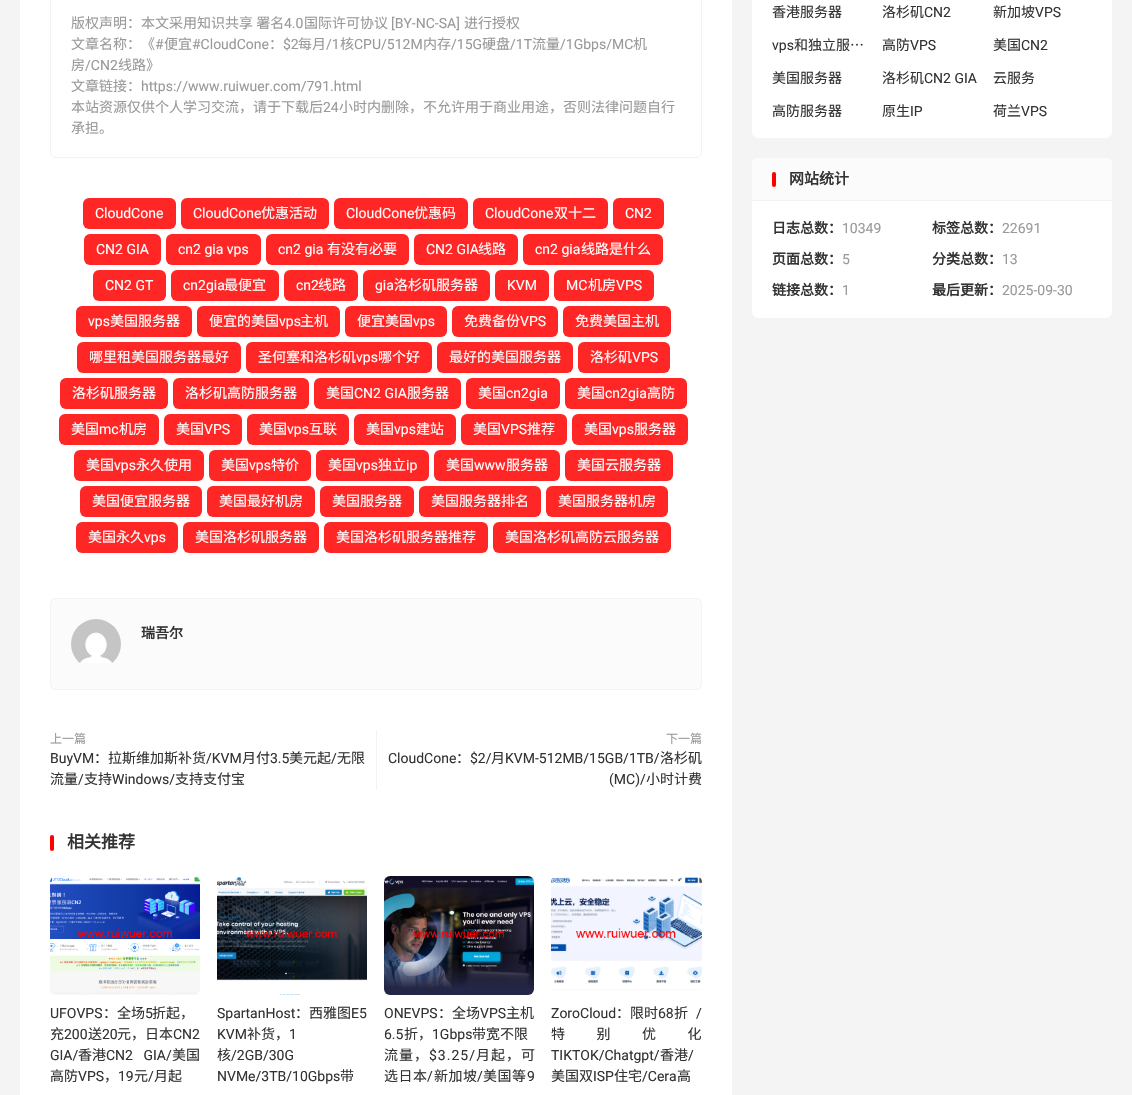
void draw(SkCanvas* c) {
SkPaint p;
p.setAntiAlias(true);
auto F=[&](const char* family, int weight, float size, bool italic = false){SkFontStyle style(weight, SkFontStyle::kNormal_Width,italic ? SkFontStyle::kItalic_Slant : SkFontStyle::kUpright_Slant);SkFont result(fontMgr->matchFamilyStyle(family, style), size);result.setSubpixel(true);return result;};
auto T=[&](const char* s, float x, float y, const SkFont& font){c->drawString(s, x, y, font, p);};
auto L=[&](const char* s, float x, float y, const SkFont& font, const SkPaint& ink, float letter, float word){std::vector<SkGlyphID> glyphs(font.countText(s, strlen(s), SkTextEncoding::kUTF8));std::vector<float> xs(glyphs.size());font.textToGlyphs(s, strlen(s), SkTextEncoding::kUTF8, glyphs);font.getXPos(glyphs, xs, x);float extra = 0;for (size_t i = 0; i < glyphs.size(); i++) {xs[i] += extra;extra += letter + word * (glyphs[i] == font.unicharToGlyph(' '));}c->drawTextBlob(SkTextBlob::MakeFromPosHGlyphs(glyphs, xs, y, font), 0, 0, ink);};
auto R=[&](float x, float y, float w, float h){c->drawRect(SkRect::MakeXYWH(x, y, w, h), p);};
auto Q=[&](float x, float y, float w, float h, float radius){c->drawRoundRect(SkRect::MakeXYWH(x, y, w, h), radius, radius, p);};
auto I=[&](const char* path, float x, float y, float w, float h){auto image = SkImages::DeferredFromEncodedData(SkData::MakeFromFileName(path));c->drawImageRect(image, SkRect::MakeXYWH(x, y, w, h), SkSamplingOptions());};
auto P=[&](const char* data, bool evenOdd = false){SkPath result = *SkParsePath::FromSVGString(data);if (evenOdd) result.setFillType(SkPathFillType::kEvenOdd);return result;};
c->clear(0xfff4f4f4);
p.setColor(0xffffffff);
R(20,0,712,1095);
p.setStroke(true);
p.setStrokeWidth(1);
p.setColor(0xfff3f3f3);
c->drawRoundRect(SkRect::MakeXYWH(50.5,-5.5,651,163),5.5,5.5,p);
auto f1 = F("Noto Sans CJK SC",400,14);
p.setStroke(false);
p.setColor(0xff999999);
T("版权声明：本文采用知识共享 署名",71,28,f1);
auto f2 = F("Roboto",400,14);
T("4.0",284,28,f2);
T("国际许可协议",304,28,f1);
T("[BY-NC-SA]",391,28,f2);
T("进行授权",464,28,f1);
T("文章名称：《",71,49,f1);
T("#",155,49,f2);
T("便宜",164,49,f1);
T("#CloudCone",192,49,f2);
T("：",269,49,f1);
T("$2",283,49,f2);
T("每月",298,49,f1);
T("/1",326,49,f2);
T("核",340,49,f1);
T("CPU/512M",354,49,f2);
T("内存",423,49,f1);
T("/15G",451,49,f2);
T("硬盘",482,49,f1);
T("/1T",510,49,f2);
T("流量",532,49,f1);
T("/1Gbps/MC",560,49,f2);
T("机",633,49,f1);
T("房",71,70,f1);
T("/CN2",85,70,f2);
T("线路》",118,70,f1);
T("文章链接：",71,91,f1);
T("https://www.ruiwuer.com/791.html",141,91,f2);
T("本站资源仅供个人学习交流，请于下载后",71,112,f1);
T("24",323,112,f2);
T("小时内删除，不允许用于商业用途，否则法律问题自行",339,112,f1);
T("承担。",71,133,f1);
p.setColor(0xffff2626);
Q(83,198,93,31,6);
p.setColor(0xffffffff);
T("CloudCone",95,218,f2);
p.setColor(0xffff2626);
Q(181,198,148,31,6);
p.setColor(0xffffffff);
T("CloudCone",193,218,f2);
T("优惠活动",261,218,f1);
p.setColor(0xffff2626);
Q(334,198,134,31,6);
p.setColor(0xffffffff);
T("CloudCone",346,218,f2);
T("优惠码",414,218,f1);
p.setColor(0xffff2626);
Q(473,198,135,31,6);
p.setColor(0xffffffff);
T("CloudCone",485,218,f2);
T("双十二",554,218,f1);
p.setColor(0xffff2626);
Q(613,198,51,31,6);
p.setColor(0xffffffff);
T("CN2",625,218,f2);
p.setColor(0xffff2626);
Q(84,234,77,31,6);
p.setColor(0xffffffff);
T("CN2 GIA",96,254,f2);
p.setColor(0xffff2626);
Q(166,234,95,31,6);
p.setColor(0xffffffff);
T("cn2 gia vps",178,254,f2);
p.setColor(0xffff2626);
Q(266,234,143,31,6);
p.setColor(0xffffffff);
T("cn2 gia",278,254,f2);
T("有没有必要",327,254,f1);
p.setColor(0xffff2626);
Q(414,234,104,31,6);
p.setColor(0xffffffff);
T("CN2 GIA",426,254,f2);
T("线路",478,254,f1);
p.setColor(0xffff2626);
Q(523,234,140,31,6);
p.setColor(0xffffffff);
T("cn2 gia",535,254,f2);
T("线路是什么",581,254,f1);
p.setColor(0xffff2626);
Q(93,270,73,31,6);
p.setColor(0xffffffff);
T("CN2 GT",105,290,f2);
p.setColor(0xffff2626);
Q(171,270,108,31,6);
p.setColor(0xffffffff);
T("cn2gia",183,290,f2);
T("最便宜",224,290,f1);
p.setColor(0xffff2626);
Q(284,270,74,31,6);
p.setColor(0xffffffff);
T("cn2",296,290,f2);
T("线路",318,290,f1);
p.setColor(0xffff2626);
Q(363,270,127,31,6);
p.setColor(0xffffffff);
T("gia",375,290,f2);
T("洛杉矶服务器",394,290,f1);
p.setColor(0xffff2626);
Q(495,270,54,31,6);
p.setColor(0xffffffff);
T("KVM",507,290,f2);
p.setColor(0xffff2626);
Q(554,270,100,31,6);
p.setColor(0xffffffff);
T("MC",566,290,f2);
T("机房",588,290,f1);
T("VPS",616,290,f2);
p.setColor(0xffff2626);
Q(76,306,116,31,6);
p.setColor(0xffffffff);
T("vps",88,326,f2);
T("美国服务器",110,326,f1);
p.setColor(0xffff2626);
Q(197,306,143,31,6);
p.setColor(0xffffffff);
T("便宜的美国",209,326,f1);
T("vps",279,326,f2);
T("主机",300,326,f1);
p.setColor(0xffff2626);
Q(345,306,102,31,6);
p.setColor(0xffffffff);
T("便宜美国",357,326,f1);
T("vps",413,326,f2);
p.setColor(0xffff2626);
Q(452,306,106,31,6);
p.setColor(0xffffffff);
T("免费备份",464,326,f1);
T("VPS",520,326,f2);
p.setColor(0xffff2626);
Q(563,306,108,31,6);
p.setColor(0xffffffff);
T("免费美国主机",575,326,f1);
p.setColor(0xffff2626);
Q(77,342,164,31,6);
p.setColor(0xffffffff);
T("哪里租美国服务器最好",89,362,f1);
p.setColor(0xffff2626);
Q(246,342,186,31,6);
p.setColor(0xffffffff);
T("圣何塞和洛杉矶",258,362,f1);
T("vps",356,362,f2);
T("哪个好",378,362,f1);
p.setColor(0xffff2626);
Q(437,342,136,31,6);
p.setColor(0xffffffff);
T("最好的美国服务器",449,362,f1);
p.setColor(0xffff2626);
Q(578,342,92,31,6);
p.setColor(0xffffffff);
T("洛杉矶",590,362,f1);
T("VPS",632,362,f2);
p.setColor(0xffff2626);
Q(60,378,108,31,6);
p.setColor(0xffffffff);
T("洛杉矶服务器",72,398,f1);
p.setColor(0xffff2626);
Q(173,378,136,31,6);
p.setColor(0xffffffff);
T("洛杉矶高防服务器",185,398,f1);
p.setColor(0xffff2626);
Q(314,378,147,31,6);
p.setColor(0xffffffff);
T("美国",326,398,f1);
T("CN2 GIA",354,398,f2);
T("服务器",407,398,f1);
p.setColor(0xffff2626);
Q(466,378,94,31,6);
p.setColor(0xffffffff);
T("美国",478,398,f1);
T("cn2gia",506,398,f2);
p.setColor(0xffff2626);
Q(565,378,122,31,6);
p.setColor(0xffffffff);
T("美国",577,398,f1);
T("cn2gia",605,398,f2);
T("高防",647,398,f1);
p.setColor(0xffff2626);
Q(59,414,100,31,6);
p.setColor(0xffffffff);
T("美国",71,434,f1);
T("mc",99,434,f2);
T("机房",119,434,f1);
p.setColor(0xffff2626);
Q(164,414,78,31,6);
p.setColor(0xffffffff);
T("美国",176,434,f1);
T("VPS",204,434,f2);
p.setColor(0xffff2626);
Q(247,414,102,31,6);
p.setColor(0xffffffff);
T("美国",259,434,f1);
T("vps",287,434,f2);
T("互联",309,434,f1);
p.setColor(0xffff2626);
Q(354,414,102,31,6);
p.setColor(0xffffffff);
T("美国",366,434,f1);
T("vps",394,434,f2);
T("建站",416,434,f1);
p.setColor(0xffff2626);
Q(461,414,106,31,6);
p.setColor(0xffffffff);
T("美国",473,434,f1);
T("VPS",501,434,f2);
T("推荐",527,434,f1);
p.setColor(0xffff2626);
Q(572,414,116,31,6);
p.setColor(0xffffffff);
T("美国",584,434,f1);
T("vps",612,434,f2);
T("服务器",634,434,f1);
p.setColor(0xffff2626);
Q(74,450,130,31,6);
p.setColor(0xffffffff);
T("美国",86,470,f1);
T("vps",114,470,f2);
T("永久使用",136,470,f1);
p.setColor(0xffff2626);
Q(209,450,102,31,6);
p.setColor(0xffffffff);
T("美国",221,470,f1);
T("vps",249,470,f2);
T("特价",271,470,f1);
p.setColor(0xffff2626);
Q(316,450,113,31,6);
p.setColor(0xffffffff);
T("美国",328,470,f1);
T("vps",356,470,f2);
T("独立",378,470,f1);
T("ip",406,470,f2);
p.setColor(0xffff2626);
Q(434,450,126,31,6);
p.setColor(0xffffffff);
T("美国",446,470,f1);
T("www",474,470,f2);
T("服务器",506,470,f1);
p.setColor(0xffff2626);
Q(565,450,108,31,6);
p.setColor(0xffffffff);
T("美国云服务器",577,470,f1);
p.setColor(0xffff2626);
Q(80,486,122,31,6);
p.setColor(0xffffffff);
T("美国便宜服务器",92,506,f1);
p.setColor(0xffff2626);
Q(207,486,108,31,6);
p.setColor(0xffffffff);
T("美国最好机房",219,506,f1);
p.setColor(0xffff2626);
Q(320,486,94,31,6);
p.setColor(0xffffffff);
T("美国服务器",332,506,f1);
p.setColor(0xffff2626);
Q(419,486,122,31,6);
p.setColor(0xffffffff);
T("美国服务器排名",431,506,f1);
p.setColor(0xffff2626);
Q(546,486,122,31,6);
p.setColor(0xffffffff);
T("美国服务器机房",558,506,f1);
p.setColor(0xffff2626);
Q(76,522,102,31,6);
p.setColor(0xffffffff);
T("美国永久",88,542,f1);
T("vps",144,542,f2);
p.setColor(0xffff2626);
Q(183,522,136,31,6);
p.setColor(0xffffffff);
T("美国洛杉矶服务器",195,542,f1);
p.setColor(0xffff2626);
Q(324,522,164,31,6);
p.setColor(0xffffffff);
T("美国洛杉矶服务器推荐",336,542,f1);
p.setColor(0xffff2626);
Q(493,522,178,31,6);
p.setColor(0xffffffff);
T("美国洛杉矶高防云服务器",505,542,f1);
p.setColor(0xfffbfbfb);
c->drawRoundRect(SkRect::MakeXYWH(50.5,598.5,651,91),5.5,5.5,p);
p.setStroke(true);
p.setColor(0xfff3f3f3);
c->drawRoundRect(SkRect::MakeXYWH(50.5,598.5,651,91),5.5,5.5,p);
I("1.png",71,619,50,44);
auto f3 = F("Noto Sans CJK SC",700,14);
p.setStroke(false);
p.setColor(0xff333333);
T("瑞吾尔",141,638,f3);
auto f4 = F("Noto Sans CJK SC",400,12);
p.setColor(0xff999999);
T("上一篇",50,743,f4);
p.setColor(0xff333333);
T("BuyVM",50,763,f2);
T("：拉斯维加斯补货",94,763,f1);
T("/KVM",206,763,f2);
T("月付",242,763,f1);
T("3.5",270,763,f2);
T("美元起",289,763,f1);
T("/",331,763,f2);
T("无限",337,763,f1);
T("流量",50,784,f1);
T("/",78,784,f2);
T("支持",84,784,f1);
T("Windows/",112,784,f2);
T("支持支付宝",175,784,f1);
p.setColor(0xfff3f3f3);
R(376,730,1,60);
p.setColor(0xff999999);
T("下一篇",666,743,f4);
p.setColor(0xff333333);
T("CloudCone",388,763,f2);
T("：",456,763,f1);
T("$2/",470,763,f2);
T("月",491,763,f1);
T("KVM-512MB/15GB/1TB/",505,763,f2);
T("洛杉矶",660,763,f1);
T("(MC)/",609,784,f2);
T("小时计费",646,784,f1);
p.setColor(0xffff0000);
Q(50,835,4,16,2);
auto f5 = F("Noto Sans CJK SC",700,17);
p.setColor(0xff333333);
T("相关推荐",67,848,f5);
I("2.png",50,876,150,119);
T("UFOVPS",50,1018,f2);
T("：全场",103,1018,f1);
T("5",145,1018,f2);
T("折起，",152,1018,f1);
T("充",50,1039,f1);
T("200",64,1039,f2);
T("送",88,1039,f1);
T("20",102,1039,f2);
T("元，日本",117,1039,f1);
T("CN2",173,1039,f2);
T("GIA/",50,1060,f2);
T("香港",78,1060,f1);
L("CN2 GIA/",106,1060,f2,p,0,7);
T("美国",172,1060,f1);
T("高防",50,1081,f1);
T("VPS",78,1081,f2);
T("，",104,1081,f1);
T("19",118,1081,f2);
T("元",134,1081,f1);
T("/",148,1081,f2);
T("月起",154,1081,f1);
I("3.png",217,877,150,118);
T("SpartanHost",217,1018,f2);
T("：西雅图",295,1018,f1);
T("E5",351,1018,f2);
T("KVM",217,1039,f2);
T("补货，",247,1039,f1);
T("1",289,1039,f2);
T("核",217,1060,f1);
T("/2GB/30G",231,1060,f2);
T("NVMe/3TB/10Gbps",217,1081,f2);
T("带",340,1081,f1);
I("4.png",384,876,150,119);
T("ONEVPS",384,1018,f2);
T("：全场",438,1018,f1);
T("VPS",480,1018,f2);
T("主机",506,1018,f1);
T("6.5",384,1039,f2);
T("折，",404,1039,f1);
T("1Gbps",432,1039,f2);
T("带宽不限",472,1039,f1);
L("流量，",384,1060,f1,p,1,0);
L("$3.25/",429,1060,f2,p,1,0);
L("月起，可",476,1060,f1,p,1,0);
L("选日本",384,1081,f1,p,.5,0);
L("/",427,1081,f2,p,.5,0);
L("新加坡",434,1081,f1,p,.5,0);
L("/",477,1081,f2,p,.5,0);
L("美国等",483,1081,f1,p,.5,0);
L("9",527,1081,f2,p,.5,0);
I("5.png",551,877,151,113);
T("ZoroCloud",551,1018,f2);
T("：限时",616,1018,f1);
T("68",658,1018,f2);
T("折",674,1018,f1);
T("/",696,1018,f2);
L("特别优化",551,1039,f1,p,31.5,0);
T("TIKTOK/Chatgpt/",551,1060,f2);
T("香港",660,1060,f1);
T("/",688,1060,f2);
T("美国双",551,1081,f1);
T("ISP",593,1081,f2);
T("住宅",614,1081,f1);
T("/Cera",642,1081,f2);
T("高",677,1081,f1);
p.setColor(0xffffffff);
Q(752,-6,360,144,6);
p.setColor(0xff333333);
T("香港服务器",772,17,f1);
T("洛杉矶",882,17,f1);
T("CN2",924,17,f2);
T("新加坡",993,17,f1);
T("VPS",1035,17,f2);
T("vps",772,50,f2);
T("和独立服…",794,50,f1);
T("高防",882,50,f1);
T("VPS",910,50,f2);
T("美国",993,50,f1);
T("CN2",1021,50,f2);
T("美国服务器",772,83,f1);
T("洛杉矶",882,83,f1);
T("CN2 GIA",924,83,f2);
T("云服务",993,83,f1);
T("高防服务器",772,116,f1);
T("原生",882,116,f1);
T("IP",910,116,f2);
T("荷兰",993,116,f1);
T("VPS",1021,116,f2);
p.setColor(0xffffffff);
Q(752,158,360,160,6);
p.setColor(0xfffbfbfb);
c->drawPath(P("M758 158h348c3.5 0 6 2.5 6 6v37h-360v-37c0-3.5 2.5-6 6-6z"),p);
p.setColor(0xfff3f3f3);
R(752,200,360,1);
p.setColor(0xffff0000);
Q(772,172,4,15,2);
auto f6 = F("Noto Sans CJK SC",700,15);
p.setColor(0xff333333);
T("网站统计",789,184,f6);
T("日志总数：",772,233,f3);
p.setColor(0xff999999);
T("10349",842,233,f2);
p.setColor(0xff333333);
T("标签总数：",932,233,f3);
p.setColor(0xff999999);
T("22691",1002,233,f2);
p.setColor(0xff333333);
T("页面总数：",772,264,f3);
p.setColor(0xff999999);
T("5",842,264,f2);
p.setColor(0xff333333);
T("分类总数：",932,264,f3);
p.setColor(0xff999999);
T("13",1002,264,f2);
p.setColor(0xff333333);
T("链接总数：",772,295,f3);
p.setColor(0xff999999);
T("1",842,295,f2);
p.setColor(0xff333333);
T("最后更新：",932,295,f3);
p.setColor(0xff999999);
T("2025-09-30",1002,295,f2);
}
